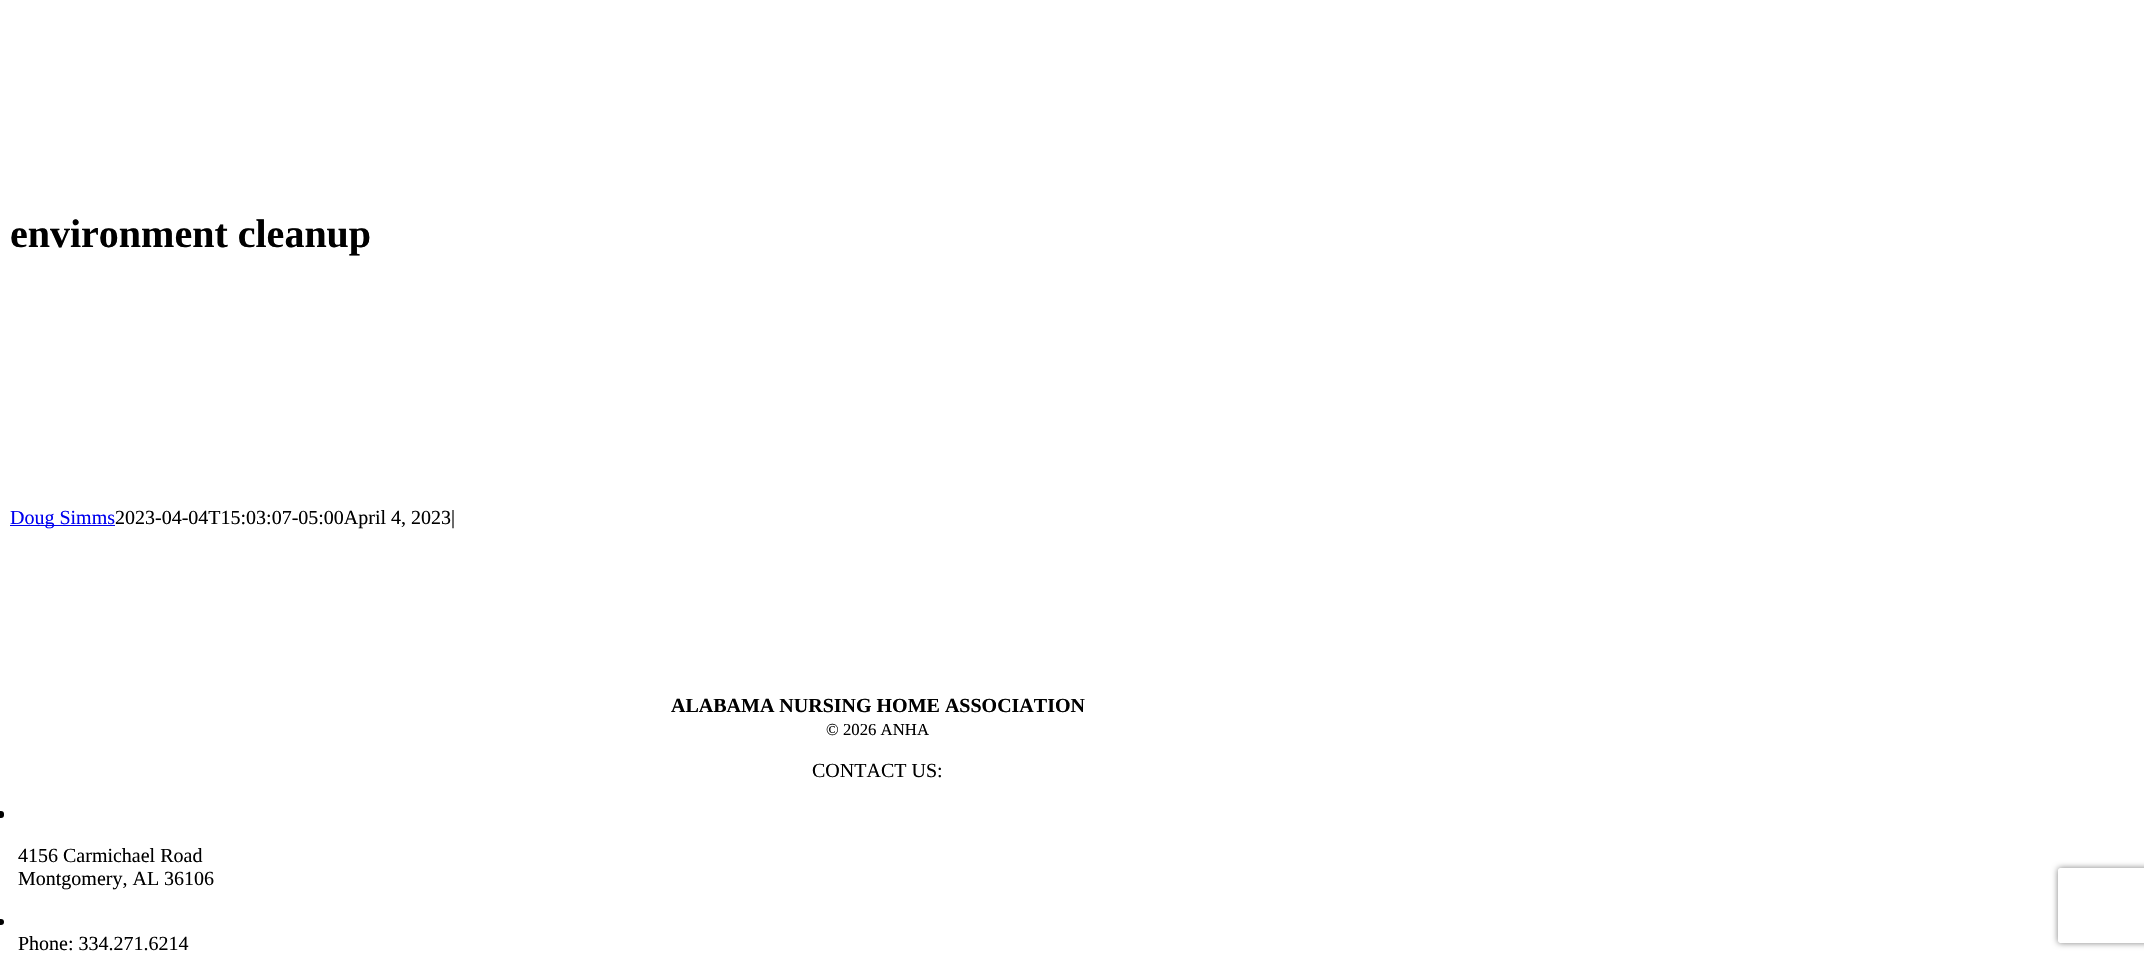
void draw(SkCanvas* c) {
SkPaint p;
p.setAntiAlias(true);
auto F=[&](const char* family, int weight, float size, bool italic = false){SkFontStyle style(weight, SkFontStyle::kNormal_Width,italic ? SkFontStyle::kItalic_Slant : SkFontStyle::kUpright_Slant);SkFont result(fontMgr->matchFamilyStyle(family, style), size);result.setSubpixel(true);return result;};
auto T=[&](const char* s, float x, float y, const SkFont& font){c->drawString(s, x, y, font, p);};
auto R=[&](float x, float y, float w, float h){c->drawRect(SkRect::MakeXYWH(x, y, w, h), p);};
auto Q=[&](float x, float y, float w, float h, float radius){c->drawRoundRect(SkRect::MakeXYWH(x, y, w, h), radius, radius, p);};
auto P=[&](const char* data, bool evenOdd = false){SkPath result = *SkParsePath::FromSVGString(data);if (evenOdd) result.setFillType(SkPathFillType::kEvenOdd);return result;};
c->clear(0xffffffff);
auto f1 = F("Liberation Serif",700,40);
p.setColor(0xff000000);
T("environment cleanup",10,247,f1);
p.setColor(0xff0000ee);
R(10,525,105,1);
auto f2 = F("Liberation Serif",400,20);
T("Doug Simms",10,524,f2);
p.setColor(0xff000000);
T("2023-04-04T15:03:07-05:00April 4, 2023|",115,524,f2);
auto f3 = F("Liberation Serif",700,20);
T("ALABAMA NURSING HOME ASSOCIATION",671,712,f3);
auto f4 = F("Liberation Serif",400,16.75);
T("© 2026 ANHA",826,735,f4);
T("CONTACT US:",812,777,f2);
Q(-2,811,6,7,3);
T("4156 Carmichael Road",18,862,f2);
T("Montgomery, AL 36106",18,885,f2);
c->drawCircle(1,922,3,p);
T("Phone: 334.271.6214",18,950,f2);
c->save();
c->clipPath(P("M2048 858h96v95h-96zm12.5 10h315c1.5 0 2.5 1 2.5 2.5v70c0 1.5-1 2.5-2.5 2.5h-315c-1.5 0-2.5-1-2.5-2.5v-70c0-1.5 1-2.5 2.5-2.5z",true),true);
p.setColor(0xff808080);
p.setMaskFilter(SkMaskFilter::MakeBlur(kNormal_SkBlurStyle, 3));
c->drawRoundRect(SkRect::MakeXYWH(2058,868,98,75),2.5,2.5,p);
p.setMaskFilter(nullptr);
c->restore();
}
